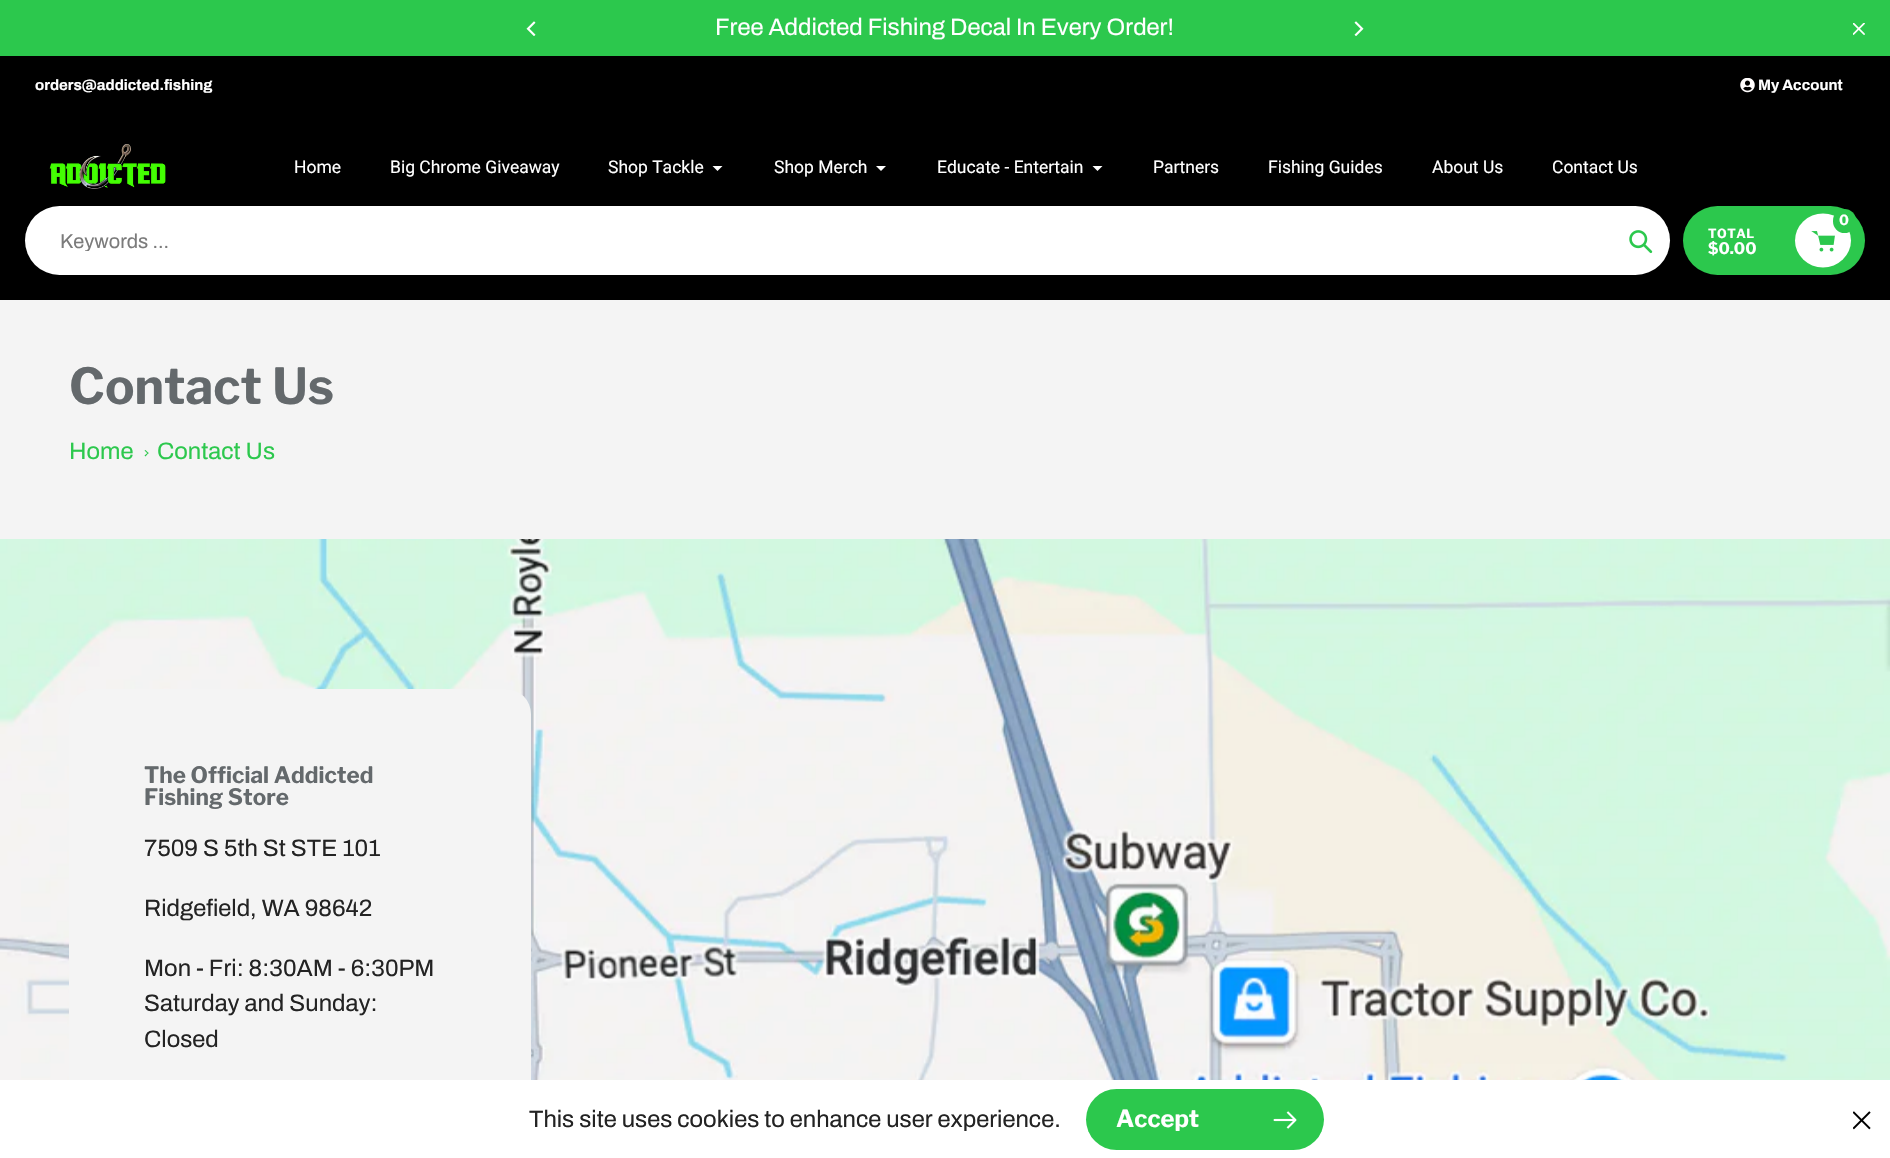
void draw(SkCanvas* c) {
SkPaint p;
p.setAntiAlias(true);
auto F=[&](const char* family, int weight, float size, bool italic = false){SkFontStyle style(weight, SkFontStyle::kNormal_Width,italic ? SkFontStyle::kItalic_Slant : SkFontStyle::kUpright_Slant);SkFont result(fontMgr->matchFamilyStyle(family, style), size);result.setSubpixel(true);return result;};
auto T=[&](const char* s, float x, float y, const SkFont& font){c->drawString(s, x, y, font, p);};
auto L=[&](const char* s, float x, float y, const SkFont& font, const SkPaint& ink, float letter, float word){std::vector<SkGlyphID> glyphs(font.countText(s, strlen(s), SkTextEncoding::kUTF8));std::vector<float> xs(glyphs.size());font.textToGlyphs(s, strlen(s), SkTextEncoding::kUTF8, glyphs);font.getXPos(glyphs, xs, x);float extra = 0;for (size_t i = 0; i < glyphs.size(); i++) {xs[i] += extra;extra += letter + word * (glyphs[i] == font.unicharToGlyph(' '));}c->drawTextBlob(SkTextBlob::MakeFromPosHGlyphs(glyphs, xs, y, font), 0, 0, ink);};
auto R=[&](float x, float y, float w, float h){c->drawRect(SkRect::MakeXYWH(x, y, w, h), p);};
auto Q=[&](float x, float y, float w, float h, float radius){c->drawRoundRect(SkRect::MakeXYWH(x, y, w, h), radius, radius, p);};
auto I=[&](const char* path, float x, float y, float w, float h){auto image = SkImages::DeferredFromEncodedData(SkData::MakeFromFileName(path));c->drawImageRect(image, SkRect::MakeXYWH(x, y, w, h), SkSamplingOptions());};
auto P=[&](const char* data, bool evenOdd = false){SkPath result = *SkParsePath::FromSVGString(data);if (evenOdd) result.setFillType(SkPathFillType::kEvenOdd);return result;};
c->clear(0xfff4f4f4);
p.setColor(0xff2cc84d);
R(0,0,1890,56);
I("1.png",526,21,10,15);
auto f1 = F("Archivo",400,23.75);
p.setColor(0xffffffff);
T("Free Addicted Fishing Decal In Every Order!",715,35,f1);
I("2.png",1354,21,10,15);
I("3.png",1853,23,12,12);
p.setColor(0xff000000);
R(0,56,1890,244);
auto f2 = F("Archivo",700,15);
p.setColor(0xffffffff);
T("orders@addicted.fishing",35,90,f2);
I("4.png",1740,78,15,15);
T("My Account",1758,90,f2);
I("5.png",49,144,117,45);
auto f3 = F("Roboto",400,17.5);
T("Home",294,173,f3);
T("Big Chrome Giveaway",390,173,f3);
T("Shop Tackle",608,173,f3);
c->drawPath(P("M722.5 166l-5 5l-5-5"),p);
T("Shop Merch",774,173,f3);
c->drawPath(P("M886 166l-5 5l-5-5"),p);
T("Educate - Entertain",937,173,f3);
c->drawPath(P("M1102.5 166l-5 5l-5-5"),p);
T("Partners",1153,173,f3);
T("Fishing Guides",1268,173,f3);
T("About Us",1432,173,f3);
T("Contact Us",1552,173,f3);
Q(25,206,1645,69,34.5);
c->save();
c->clipRect(SkRect::MakeXYWH(60,230,1554,21));
auto f4 = F("Archivo",400,20);
p.setColor(0xff7b7b7b);
T("Keywords ...",60,248,f4);
c->restore();
I("6.png",1629,230,24,24);
p.setColor(0xff2cc84d);
Q(1683,206,182,69,34.5);
p.setColor(0xffffffff);
c->drawOval(SkRect::MakeXYWH(1795,213.5,56,54),p);
I("7.png",1811,231,24,21);
p.setColor(0xff2cc84d);
Q(1833,209,23,24,11.5);
auto f5 = F("Libre Franklin",700,14);
p.setColor(0xffffffff);
T("0",1839,225,f5);
auto f6 = F("Libre Franklin",700,12.5);
L("TOTAL",1708,238,f6,p,.5,0);
auto f7 = F("Libre Franklin",700,16);
T("$0.00",1708,254,f7);
auto f8 = F("Libre Franklin",700,49.5);
p.setColor(0xff64696c);
T("Contact Us",69,404,f8);
p.setColor(0xff2cc84d);
T("Home",69,459,f1);
c->drawPath(P("M145.5 450l3 3l-.5 1l-3.5-3.5z"),p);
c->drawPath(P("M148 452.5l.5 .5l-3 3.5l-1-1z"),p);
T("Contact Us",157,459,f1);
I("8.png",0,539,1890,541);
p.setColor(0xfff4f4f4);
Q(69,689,462,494,25);
auto f9 = F("Libre Franklin",700,22.5);
p.setColor(0xff64696c);
T("The Official Addicted",144,783,f9);
T("Fishing Store",144,805,f9);
p.setColor(0xff232323);
T("7509 S 5th St STE 101",144,856,f1);
T("Ridgefield, WA 98642",144,916,f1);
T("Mon - Fri: 8:30AM - 6:30PM",144,976,f1);
T("Saturday and Sunday:",144,1011,f1);
T("Closed",144,1047,f1);
p.setColor(0xffffffff);
R(0,1080,1890,78);
p.setColor(0xff232323);
T("This site uses cookies to enhance user experience.",529,1127,f1);
p.setColor(0xff2cc84d);
Q(1086,1089,238,61,30.5);
auto f10 = F("Libre Franklin",700,23.75);
p.setColor(0xffffffff);
T("Accept",1116,1127,f10);
I("9.png",1273,1111,24,18);
I("10.png",1853,1111,18,19);
}
